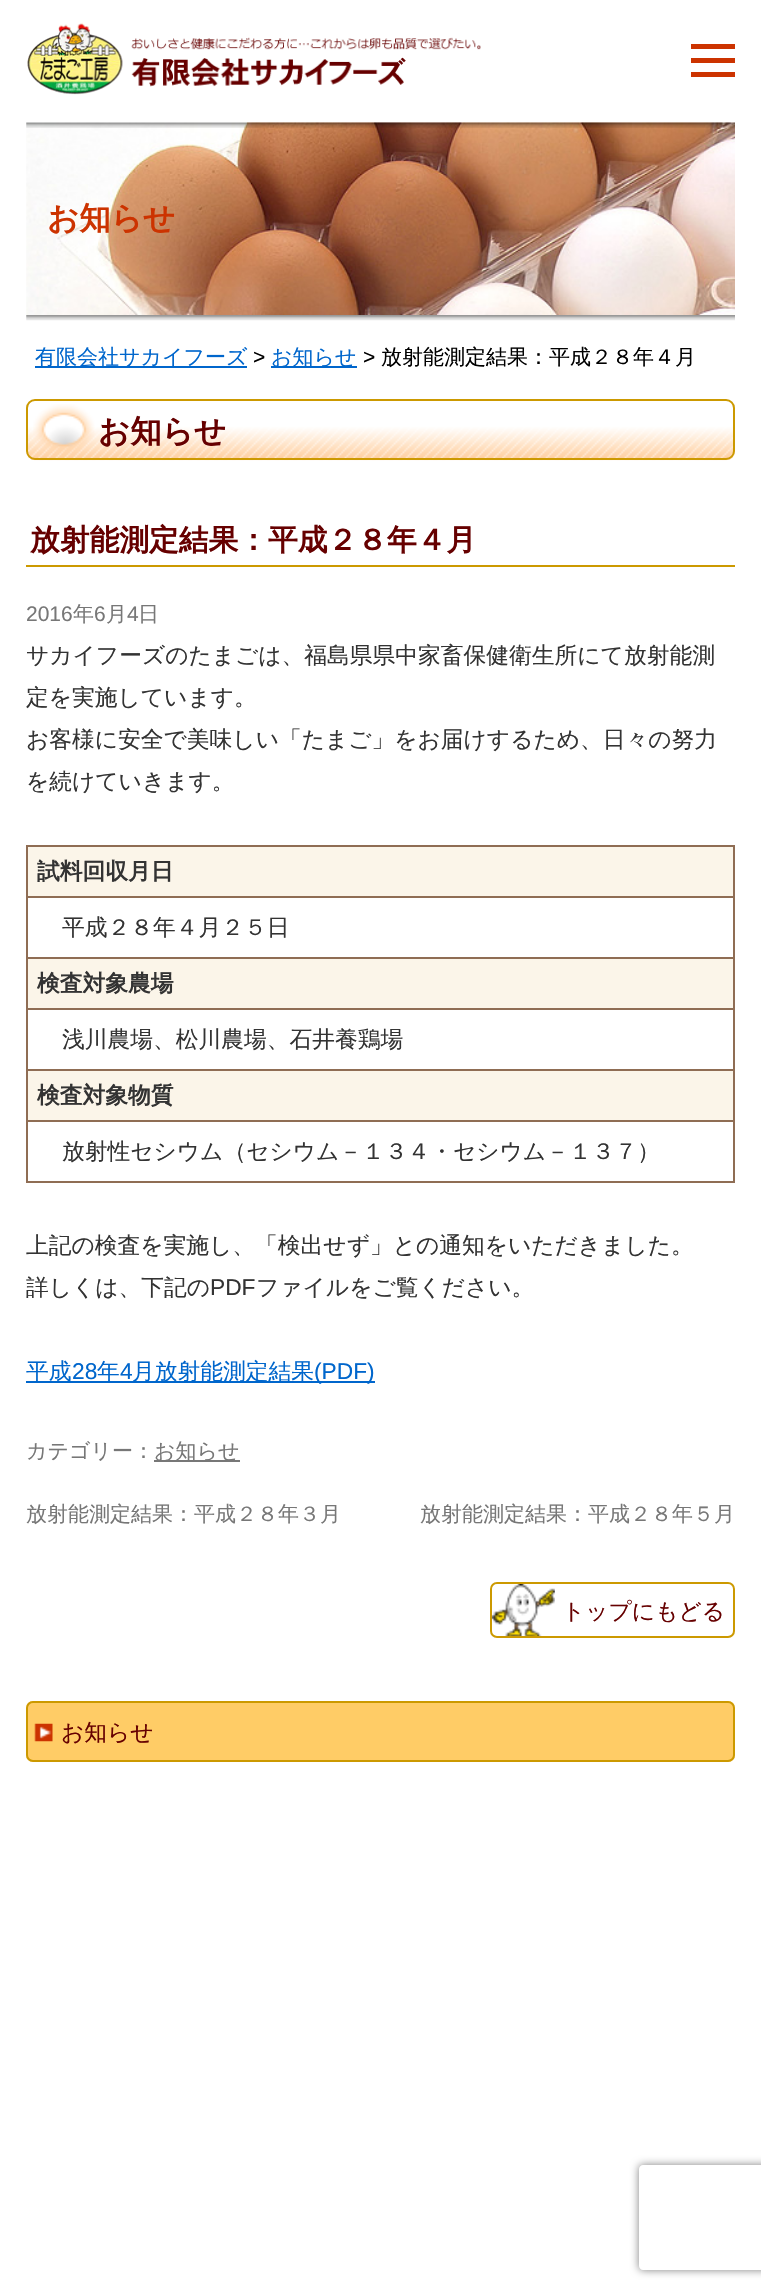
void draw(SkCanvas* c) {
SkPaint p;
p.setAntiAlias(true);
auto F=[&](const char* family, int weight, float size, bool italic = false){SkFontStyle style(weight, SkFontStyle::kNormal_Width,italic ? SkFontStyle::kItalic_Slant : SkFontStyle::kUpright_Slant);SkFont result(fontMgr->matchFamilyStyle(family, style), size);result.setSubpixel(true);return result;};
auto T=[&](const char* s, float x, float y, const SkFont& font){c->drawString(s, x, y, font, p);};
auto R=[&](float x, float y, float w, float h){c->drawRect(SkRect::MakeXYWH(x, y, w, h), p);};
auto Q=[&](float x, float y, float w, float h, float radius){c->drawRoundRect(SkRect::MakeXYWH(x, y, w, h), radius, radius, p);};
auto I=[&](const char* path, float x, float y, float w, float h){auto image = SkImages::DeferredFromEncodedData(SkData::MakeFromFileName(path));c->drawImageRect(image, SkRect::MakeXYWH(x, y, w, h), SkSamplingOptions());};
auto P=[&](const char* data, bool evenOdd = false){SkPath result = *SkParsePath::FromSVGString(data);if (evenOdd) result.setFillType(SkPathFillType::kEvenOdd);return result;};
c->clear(0xffffffff);
I("1.png",27,22,454,73);
p.setColor(0xffcc3300);
R(691,44,44,5);
R(691,58,44,5);
R(691,72,44,5);
I("2.png",26,122,709,193);
I("3.png",26,122,709,6);
auto f1 = F("WenQuanYi Zen Hei",700,31.5);
T("お知らせ",47,229,f1);
I("4.png",26,315,709,6);
p.setColor(0xff0066cc);
R(35,366,212,2);
auto f2 = F("WenQuanYi Zen Hei",500,21);
T("有限会社サカイフーズ",35,364,f2);
auto f3 = F("Liberation Sans",400,21);
p.setColor(0xff000000);
T(">",253,364,f3);
p.setColor(0xff0066cc);
R(271,366,86,2);
T("お知らせ",271,364,f2);
p.setColor(0xff000000);
T(">",363,364,f3);
T("放射能測定結果：平成２８年４月",381,364,f2);
I("5.png",26,404,709,57);
p.setStroke(true);
p.setStrokeWidth(2);
p.setColor(0xffcc9900);
c->drawRoundRect(SkRect::MakeXYWH(27,400,707,59),8,8,p);
p.setStroke(false);
p.setColor(0xff660000);
T("お知らせ",98,442,f1);
p.setColor(0xffcc9900);
R(26,565,709,2);
auto f4 = F("WenQuanYi Zen Hei",700,29.75);
p.setColor(0xff660000);
T("放射能測定結果：平成２８年４月",30,550,f4);
p.setColor(0xff777777);
T("2016",26,621,f3);
T("年",73,621,f2);
T("6",94,621,f3);
T("月",106,621,f2);
T("4",127,621,f3);
T("日",138,621,f2);
auto f5 = F("WenQuanYi Zen Hei",500,22.75);
p.setColor(0xff333333);
T("サカイフーズのたまごは、福島県県中家畜保健衛生所にて放射能測",26,663,f5);
T("定を実施しています。",26,705,f5);
T("お客様に安全で美味しい「たまご」をお届けするため、日々の努力",26,747,f5);
T("を続けていきます。",26,789,f5);
p.setColor(0xff8f6d54);
R(26,845,709,2);
R(733,845,2,338);
R(26,845,2,338);
p.setColor(0xfffbf5e9);
R(28,847,705,49);
p.setColor(0xff8f6d54);
R(28,896,705,2);
auto f6 = F("WenQuanYi Zen Hei",700,22.75);
p.setColor(0xff333333);
T("試料回収月日",37,879,f6);
p.setColor(0xff8f6d54);
R(28,957,705,2);
p.setColor(0xff333333);
T("平成２８年４月２５日",62,935,f5);
p.setColor(0xfffbf5e9);
R(28,959,705,49);
p.setColor(0xff8f6d54);
R(28,1008,705,2);
p.setColor(0xff333333);
T("検査対象農場",37,991,f6);
p.setColor(0xff8f6d54);
R(28,1069,705,2);
p.setColor(0xff333333);
T("浅川農場、松川農場、石井養鶏場",62,1047,f5);
p.setColor(0xfffbf5e9);
R(28,1071,705,49);
p.setColor(0xff8f6d54);
R(28,1120,705,2);
p.setColor(0xff333333);
T("検査対象物質",37,1103,f6);
p.setColor(0xff8f6d54);
R(28,1181,705,2);
p.setColor(0xff333333);
T("放射性セシウム（セシウム－１３４・セシウム－１３７）",62,1159,f5);
T("上記の検査を実施し、「検出せず」との通知をいただきました。",26,1253,f5);
T("詳しくは、下記の",26,1295,f5);
auto f7 = F("Liberation Sans",400,22.75);
T("PDF",210,1295,f7);
T("ファイルをご覧ください。",256,1295,f5);
p.setColor(0xff0066cc);
R(26,1381,349,2);
T("平成",26,1379,f5);
T("28",72,1379,f7);
T("年",97,1379,f5);
T("4",120,1379,f7);
T("月放射能測定結果",132,1379,f5);
T("(PDF)",314,1379,f7);
p.setColor(0xff777777);
T("カテゴリー：",26,1458,f2);
R(154,1460,86,2);
T("お知らせ",154,1458,f2);
T("放射能測定結果：平成２８年３月",26,1521,f2);
T("放射能測定結果：平成２８年５月",420,1521,f2);
I("6.png",491,1583,64,55);
p.setStroke(true);
p.setColor(0xffcc9900);
c->drawRoundRect(SkRect::MakeXYWH(491,1583,243,54),6,6,p);
p.setStroke(false);
p.setColor(0xff660000);
T("トップにもどる",562,1619,f5);
p.setColor(0xffffcc66);
Q(26,1701,709,61,7);
I("7.png",34,1723,19,19);
p.setStroke(true);
p.setColor(0xffcc9900);
c->drawRoundRect(SkRect::MakeXYWH(27,1702,707,59),6,6,p);
p.setStroke(false);
p.setColor(0xff660000);
T("お知らせ",61,1740,f5);
c->save();
c->clipPath(P("M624 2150h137v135h-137zm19 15h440c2 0 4 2 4 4v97c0 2-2 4-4 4h-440c-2 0-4-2-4-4v-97c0-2 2-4 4-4z",true),true);
p.setColor(0xff808080);
p.setMaskFilter(SkMaskFilter::MakeBlur(kNormal_SkBlurStyle, 4.5));
c->drawRoundRect(SkRect::MakeXYWH(639,2165,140,105),4,4,p);
p.setMaskFilter(nullptr);
c->restore();
}
